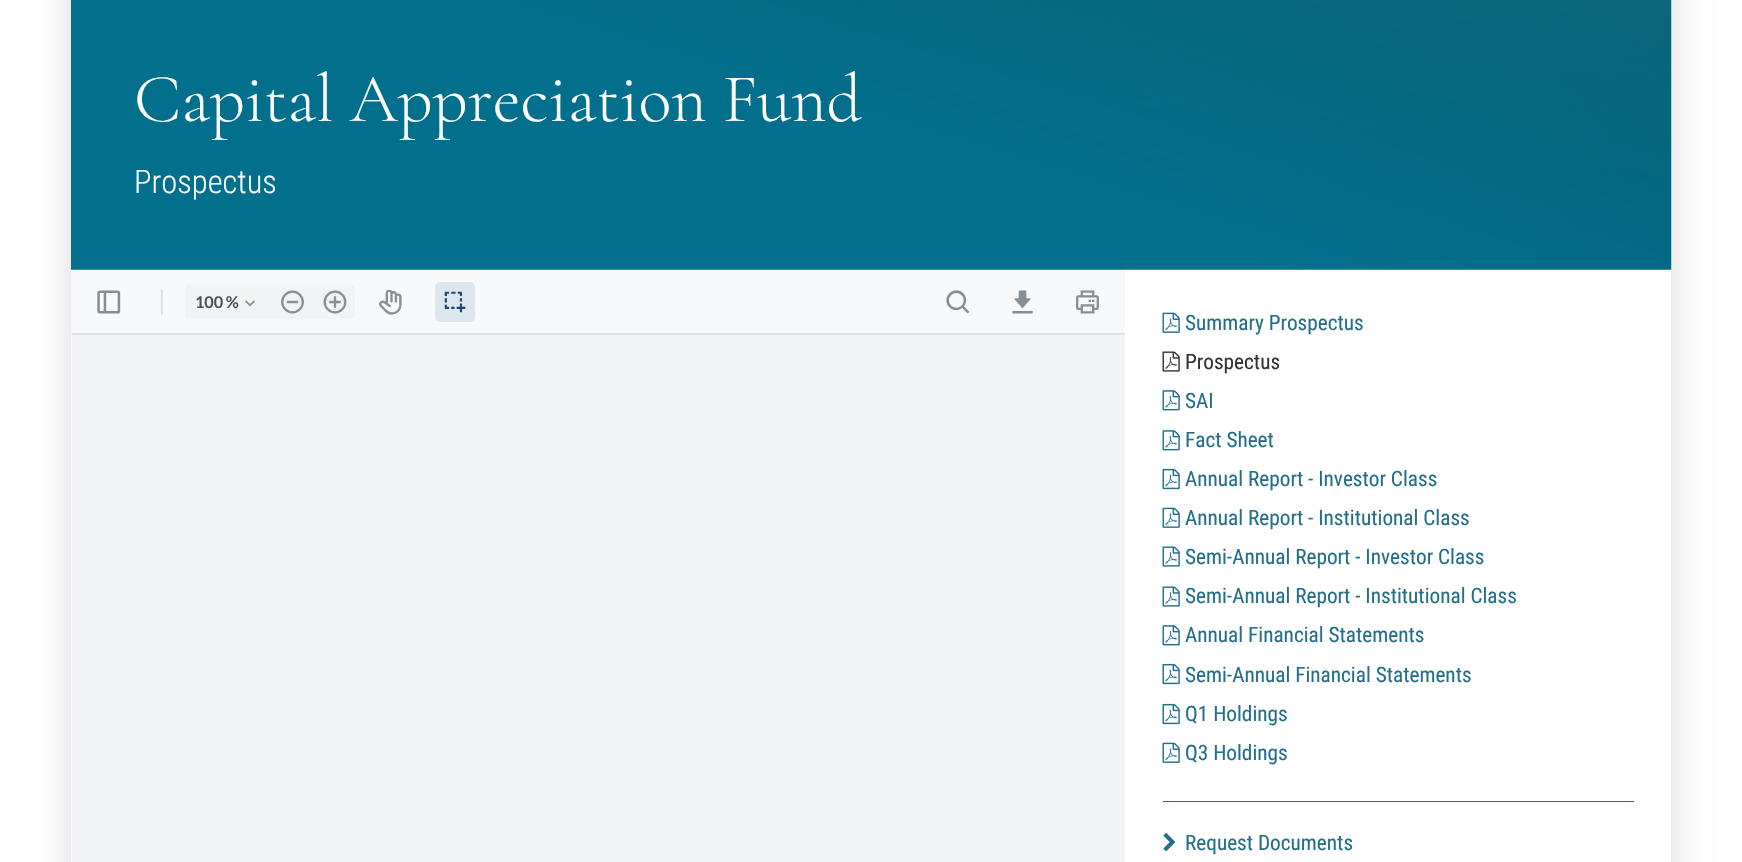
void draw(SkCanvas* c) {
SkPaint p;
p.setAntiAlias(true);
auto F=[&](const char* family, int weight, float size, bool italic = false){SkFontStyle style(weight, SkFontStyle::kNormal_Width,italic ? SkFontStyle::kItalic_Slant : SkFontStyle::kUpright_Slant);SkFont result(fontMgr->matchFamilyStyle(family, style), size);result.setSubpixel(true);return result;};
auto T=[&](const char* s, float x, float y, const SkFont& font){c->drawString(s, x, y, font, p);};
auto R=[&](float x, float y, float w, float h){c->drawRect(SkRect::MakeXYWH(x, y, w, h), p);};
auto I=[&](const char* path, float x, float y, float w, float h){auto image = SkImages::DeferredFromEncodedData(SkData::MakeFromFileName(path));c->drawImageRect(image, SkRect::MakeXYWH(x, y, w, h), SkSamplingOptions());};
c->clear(0xffffffff);
p.setColor(0x26000000);
p.setMaskFilter(SkMaskFilter::MakeBlur(kNormal_SkBlurStyle, 15.5));
c->drawRect(SkRect::MakeXYWH(71,-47,1600,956),p);
p.setMaskFilter(nullptr);
p.setColor(0xffffffff);
R(71,269,1600,593);
I("1.png",643,0,1029,270);
{
const SkColor colors[] = {0xff2f7479,0x002f7479};
const float stops[] = {.3,.9};
const SkPoint ends[] = {{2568,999}, {775,-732}};
p.setShader(SkGradientShader::MakeLinear(ends, colors, stops, 2, SkTileMode::kClamp));
p.setAlpha(255);
}
R(643,0,1028,270);
{
const SkColor colors[] = {0xff014d43,0x00014d43};
const float stops[] = {.3,.9};
const SkPoint ends[] = {{1333,858}, {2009,-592}};
p.setShader(SkGradientShader::MakeLinear(ends, colors, stops, 2, SkTileMode::kClamp));
p.setAlpha(255);
}
R(431,0,1240,270);
{
const SkColor colors[] = {0xff206e88,0x00206e88};
const float stops[] = {.3,.9};
const SkPoint ends[] = {{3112,686}, {231,-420}};
p.setShader(SkGradientShader::MakeLinear(ends, colors, stops, 2, SkTileMode::kClamp));
p.setAlpha(255);
}
R(442,0,1229,270);
{
const SkColor colors[] = {0xff064757,0x00064757};
const float stops[] = {.3,.9};
const SkPoint ends[] = {{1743,539}, {1600,-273}};
p.setShader(SkGradientShader::MakeLinear(ends, colors, stops, 2, SkTileMode::kClamp));
p.setAlpha(255);
}
R(487,0,1184,270);
{
const SkColor colors[] = {0xff026f8d,0x00026f8d};
const float stops[] = {.3,.9};
const SkPoint ends[] = {{1496,706}, {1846,-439}};
p.setShader(SkGradientShader::MakeLinear(ends, colors, stops, 2, SkTileMode::kClamp));
p.setAlpha(255);
}
R(71,0,1600,270);
p.setShader(nullptr);
p.setColor(0x40ffffff);
R(71,269,1600,1);
auto f1 = F("Cormorant Garamond",300,68.75);
p.setColor(0xffffffff);
T("Capital Appreciation Fund",134,121,f1);
auto f2 = F("Roboto Condensed",300,32.5);
T("Prospectus",134,193,f2);
I("2.png",71,270,1054,592);
p.setColor(0xff236e89);
R(1163,801,471,1);
I("3.png",1162,312,18,21);
auto f3 = F("Roboto Condensed",400,21.25);
T("Summary Prospectus",1185,330,f3);
I("4.png",1162,351,18,21);
p.setColor(0xff333333);
T("Prospectus",1185,369,f3);
I("5.png",1162,390,18,21);
p.setColor(0xff236e89);
T("SAI",1185,408,f3);
I("5.png",1162,430,18,21);
T("Fact Sheet",1185,447,f3);
I("6.png",1162,468,18,22);
T("Annual Report - Investor Class",1185,486,f3);
I("3.png",1162,507,18,21);
T("Annual Report - Institutional Class",1185,525,f3);
I("7.png",1162,546,18,21);
T("Semi-Annual Report - Investor Class",1185,564,f3);
I("7.png",1162,586,18,21);
T("Semi-Annual Report - Institutional Class",1185,603,f3);
I("5.png",1162,625,18,21);
T("Annual Financial Statements",1185,642,f3);
I("6.png",1162,663,18,22);
T("Semi-Annual Financial Statements",1185,682,f3);
I("6.png",1162,703,18,22);
T("Q1 Holdings",1185,721,f3);
I("3.png",1162,742,18,21);
T("Q3 Holdings",1185,760,f3);
I("8.png",1163,833,13,19);
T("Request Documents",1185,850,f3);
}
